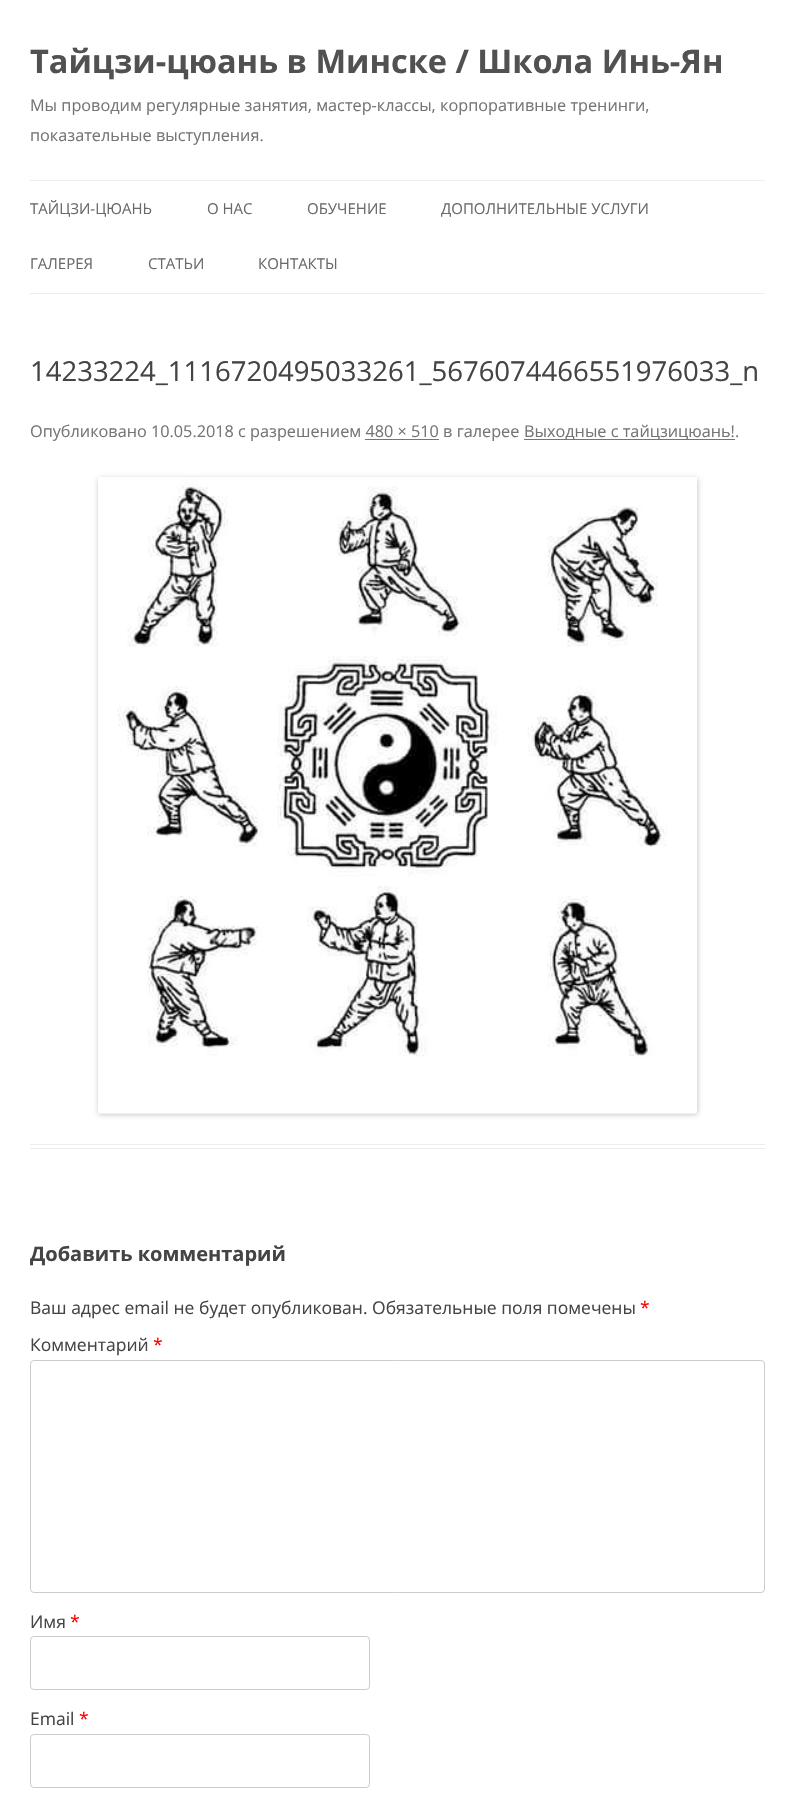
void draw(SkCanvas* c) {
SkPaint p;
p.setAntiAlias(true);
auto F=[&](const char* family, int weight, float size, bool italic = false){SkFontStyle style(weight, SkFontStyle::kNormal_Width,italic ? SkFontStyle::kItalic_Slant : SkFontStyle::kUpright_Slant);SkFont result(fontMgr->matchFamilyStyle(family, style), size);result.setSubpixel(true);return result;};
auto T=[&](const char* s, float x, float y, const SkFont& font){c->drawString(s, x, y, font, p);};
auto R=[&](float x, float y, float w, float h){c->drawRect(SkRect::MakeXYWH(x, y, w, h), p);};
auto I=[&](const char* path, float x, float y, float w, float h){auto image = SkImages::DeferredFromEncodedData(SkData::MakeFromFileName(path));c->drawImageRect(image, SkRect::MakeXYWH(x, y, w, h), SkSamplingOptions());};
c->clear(0xffffffff);
auto f1 = F("Open Sans",700,32.5);
p.setColor(0xff515151);
T("Тайцзи-цюань в Минске / Школа Инь-Ян",30,73,f1);
auto f2 = F("Open Sans",400,16.25);
p.setColor(0xff757575);
T("Мы проводим регулярные занятия, мастер-классы, корпоративные тренинги,",30,111,f2);
T("показательные выступления.",30,141,f2);
p.setColor(0xffededed);
R(30,180,735,1);
R(30,293,735,1);
auto f3 = F("Open Sans",400,15);
p.setColor(0xff6a6a6a);
T("ТАЙЦЗИ-ЦЮАНЬ",30,214,f3);
T("О НАС",207,214,f3);
T("ОБУЧЕНИЕ",307,214,f3);
T("ДОПОЛНИТЕЛЬНЫЕ УСЛУГИ",441,214,f3);
T("ГАЛЕРЕЯ",30,269,f3);
T("СТАТЬИ",148,269,f3);
T("КОНТАКТЫ",258,269,f3);
p.setColor(0xffededed);
R(30,1144,735,1);
R(30,1148,735,1);
auto f4 = F("Open Sans",400,27.5);
p.setColor(0xff444444);
T("14233224_1116720495033261_5676074466551976033_n",30,381,f4);
p.setColor(0xff757575);
T("Опубликовано 10.05.2018 с разрешением 480 × 510 в галерее",30,437,f2);
R(524,439,211,1);
T("Выходные с тайцзицюань!.",524,437,f2);
R(365,439,74,1);
p.setColor(0x33000000);
p.setMaskFilter(SkMaskFilter::MakeBlur(kNormal_SkBlurStyle, 2.5));
c->drawRoundRect(SkRect::MakeXYWH(98,478,600,637),4,4,p);
p.setMaskFilter(nullptr);
I("1.png",98,477,599,637);
auto f5 = F("Open Sans",700,20);
p.setColor(0xff444444);
T("Добавить комментарий",30,1261,f5);
auto f6 = F("Open Sans",400,17.5);
T("Ваш адрес email не будет опубликован. Обязательные поля помечены",30,1314,f6);
p.setColor(0xffff0000);
T("*",640,1314,f6);
p.setColor(0xff444444);
T("Комментарий",30,1351,f6);
p.setColor(0xffff0000);
T("*",153,1351,f6);
p.setStroke(true);
p.setStrokeWidth(1);
p.setColor(0xffcccccc);
c->drawRoundRect(SkRect::MakeXYWH(30.5,1360.5,734,232),3.5,3.5,p);
p.setStroke(false);
p.setColor(0xff444444);
T("Имя",30,1628,f6);
p.setColor(0xffff0000);
T("*",70,1628,f6);
p.setStroke(true);
p.setColor(0xffcccccc);
c->drawRoundRect(SkRect::MakeXYWH(30.5,1636.5,339,53),3.5,3.5,p);
p.setStroke(false);
p.setColor(0xff444444);
T("Email",30,1725,f6);
p.setColor(0xffff0000);
T("*",79,1725,f6);
p.setStroke(true);
p.setColor(0xffcccccc);
c->drawRoundRect(SkRect::MakeXYWH(30.5,1734.5,339,53),3.5,3.5,p);
}
